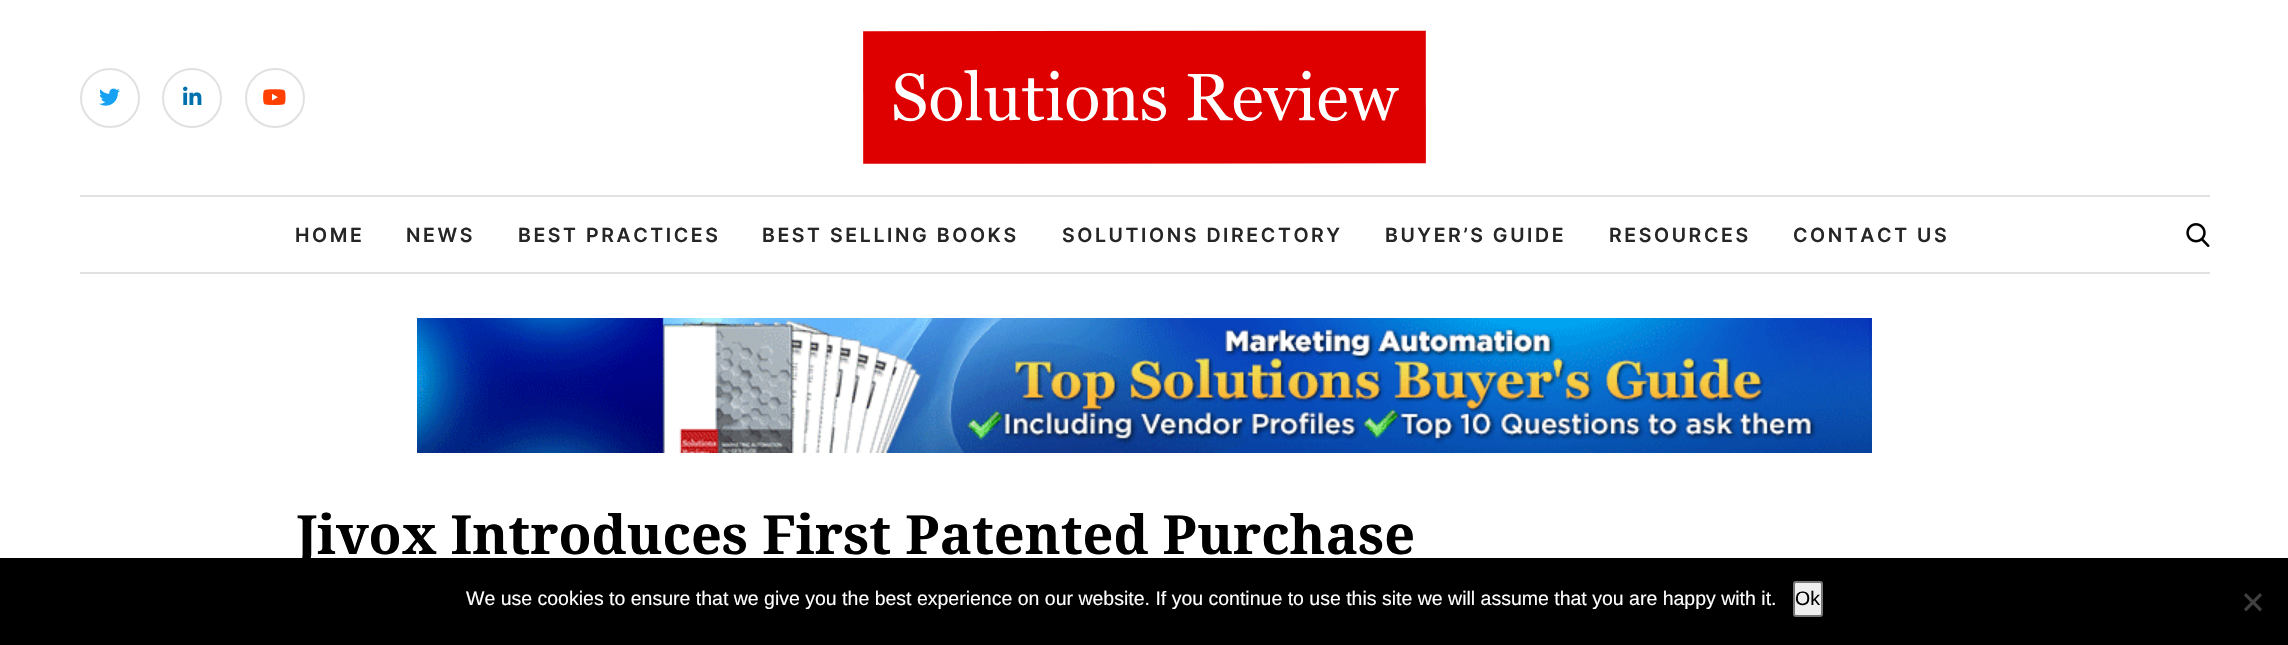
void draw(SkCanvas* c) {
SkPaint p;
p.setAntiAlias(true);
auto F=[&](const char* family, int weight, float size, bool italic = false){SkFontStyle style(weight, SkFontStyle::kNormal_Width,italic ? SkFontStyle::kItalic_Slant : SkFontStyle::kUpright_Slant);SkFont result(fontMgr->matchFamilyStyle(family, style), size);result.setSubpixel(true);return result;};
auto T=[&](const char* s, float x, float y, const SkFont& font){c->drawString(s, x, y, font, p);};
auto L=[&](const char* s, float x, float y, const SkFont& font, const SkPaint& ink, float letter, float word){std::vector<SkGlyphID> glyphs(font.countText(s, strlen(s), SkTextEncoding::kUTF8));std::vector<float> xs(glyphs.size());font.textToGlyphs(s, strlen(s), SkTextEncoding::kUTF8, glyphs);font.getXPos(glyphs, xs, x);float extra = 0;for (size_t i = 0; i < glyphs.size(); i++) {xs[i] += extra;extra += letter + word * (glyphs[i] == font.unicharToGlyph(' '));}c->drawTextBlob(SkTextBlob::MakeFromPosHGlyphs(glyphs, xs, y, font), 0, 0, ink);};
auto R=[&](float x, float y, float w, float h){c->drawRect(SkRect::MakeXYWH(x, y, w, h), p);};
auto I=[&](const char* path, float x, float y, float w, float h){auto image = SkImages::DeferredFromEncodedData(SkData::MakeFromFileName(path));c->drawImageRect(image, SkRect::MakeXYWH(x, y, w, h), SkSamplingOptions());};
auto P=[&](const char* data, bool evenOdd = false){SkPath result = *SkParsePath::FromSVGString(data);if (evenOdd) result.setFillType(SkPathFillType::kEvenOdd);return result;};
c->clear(0xffffffff);
p.setStroke(true);
p.setStrokeWidth(2);
p.setColor(0xffe1e1e1);
c->drawCircle(110,98,29,p);
I("1.png",99,88,21,18);
c->drawCircle(192,98,29,p);
I("2.png",183,86,19,19);
c->drawCircle(275,98,29,p);
I("3.png",263,89,23,16);
I("4.png",863,30,563,134);
p.setStroke(false);
R(80,195,2130,2);
R(80,272,2130,2);
auto f1 = F("Inter",600,19.5);
p.setColor(0xff262626);
L("HOME",295,242,f1,p,2.6,0);
L("NEWS",406,242,f1,p,2.6,0);
L("BEST PRACTICES",518,242,f1,p,2.6,0);
L("BEST SELLING BOOKS",762,242,f1,p,2.6,0);
L("SOLUTIONS DIRECTORY",1062,242,f1,p,2.6,0);
L("BUYER’S GUIDE",1385,242,f1,p,2.6,0);
L("RESOURCES",1609,242,f1,p,2.6,0);
L("CONTACT US",1793,242,f1,p,2.6,0);
I("5.png",2186,223,24,24);
I("6.png",417,318,1455,135);
auto f2 = F("Noto Serif",700,54);
p.setColor(0xff000000);
T("Jivox Introduces First Patented Purchase",297,554,f2);
R(0,558,2288,87);
auto f3 = F("Liberation Sans",400,19.5);
p.setColor(0xffffffff);
T("We use cookies to ensure that we give you the best experience on our website. If you continue to use this site we will assume that you are happy with it.",466,605,f3);
p.setColor(0xffefefef);
c->drawRoundRect(SkRect::MakeXYWH(1794,582,28,34),2,2,p);
p.setStroke(true);
p.setColor(0xff767676);
c->drawRoundRect(SkRect::MakeXYWH(1794,582,28,34),2,2,p);
p.setStroke(false);
p.setColor(0xff000000);
T("Ok",1795,605,f3);
p.setColor(0xff404040);
c->drawPath(P("M2260 593l2 2.5l-16 16l-2-2.5z"),p);
c->drawPath(P("M2244 595.5l2-2.5l16 16l-2 2.5z"),p);
}
